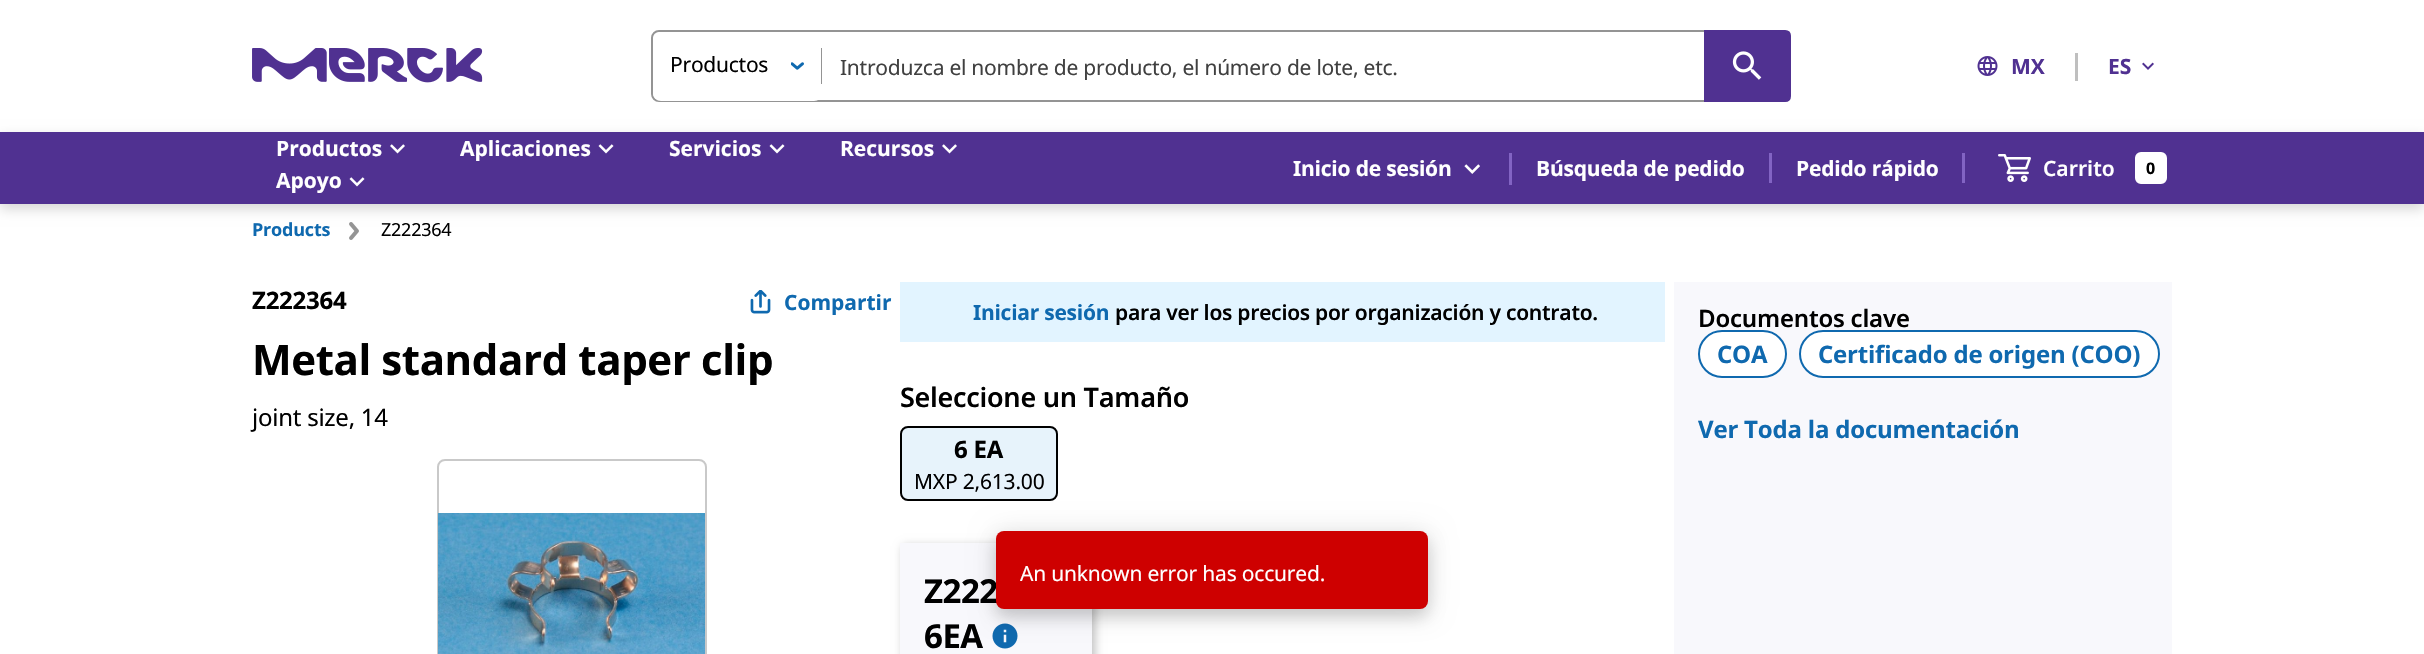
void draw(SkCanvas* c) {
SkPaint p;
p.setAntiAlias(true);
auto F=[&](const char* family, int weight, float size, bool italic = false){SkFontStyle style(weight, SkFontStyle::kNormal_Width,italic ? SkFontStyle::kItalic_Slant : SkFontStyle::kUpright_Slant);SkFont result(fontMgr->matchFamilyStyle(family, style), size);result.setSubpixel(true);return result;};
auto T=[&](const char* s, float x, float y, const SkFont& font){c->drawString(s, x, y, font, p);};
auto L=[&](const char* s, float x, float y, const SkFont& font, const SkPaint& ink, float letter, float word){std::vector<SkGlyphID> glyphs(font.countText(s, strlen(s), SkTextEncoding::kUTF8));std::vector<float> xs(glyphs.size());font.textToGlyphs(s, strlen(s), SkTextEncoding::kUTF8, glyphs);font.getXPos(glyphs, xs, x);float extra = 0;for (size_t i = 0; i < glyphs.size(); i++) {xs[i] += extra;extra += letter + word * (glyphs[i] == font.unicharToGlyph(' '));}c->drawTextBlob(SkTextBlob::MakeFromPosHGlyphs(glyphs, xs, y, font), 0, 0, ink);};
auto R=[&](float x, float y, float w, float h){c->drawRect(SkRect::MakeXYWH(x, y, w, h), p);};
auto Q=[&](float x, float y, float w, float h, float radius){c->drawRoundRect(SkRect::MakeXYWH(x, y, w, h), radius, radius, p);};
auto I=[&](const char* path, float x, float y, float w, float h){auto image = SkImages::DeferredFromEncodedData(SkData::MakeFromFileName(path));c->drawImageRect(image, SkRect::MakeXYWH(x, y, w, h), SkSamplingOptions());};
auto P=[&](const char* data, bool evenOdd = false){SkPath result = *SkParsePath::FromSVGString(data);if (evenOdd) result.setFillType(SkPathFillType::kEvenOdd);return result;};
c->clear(0xffffffff);
I("1.png",252,48,231,35);
p.setStroke(true);
p.setStrokeWidth(2);
p.setColor(0xff949494);
c->drawRoundRect(SkRect::MakeXYWH(652,31,1138,70),7,7,p);
p.setStroke(false);
p.setColor(0xffffffff);
Q(653,32,169,69,8);
auto f1 = F("Noto Sans",400,21);
p.setColor(0xff000000);
L("Productos",670,72,f1,p,-.25,0);
p.setColor(0xff949494);
R(821,48,1,36);
I("2.png",791,62,13,8);
p.setColor(0xff404040);
L("Introduzca el nombre de producto, el número de lote, etc.",840,75,f1,p,-.25,0);
p.setColor(0xff503191);
c->drawPath(P("M1705 31h80c3 0 5 2 5 5v60c0 3-2 5-5 5h-80z"),p);
p.setStroke(true);
c->drawPath(P("M1705 31h80c3 0 5 2 5 5v60c0 3-2 5-5 5h-80z"),p);
I("3.png",1732,51,30,29);
p.setStroke(false);
p.setColor(0xffbfbfbf);
R(2075,53,3,28);
I("4.png",1977,56,21,20);
auto f2 = F("Noto Sans",700,21);
p.setColor(0xff503191);
T("MX",2011,74,f2);
T("ES",2108,74,f2);
I("5.png",2142,62,12,8);
p.setColor(0x29000000);
p.setMaskFilter(SkMaskFilter::MakeBlur(kNormal_SkBlurStyle, 6));
c->drawRect(SkRect::MakeXYWH(0,137,2424,72),p);
p.setMaskFilter(nullptr);
p.setColor(0xff503191);
R(0,132,2424,72);
p.setColor(0xffffffff);
T("Productos",276,156,f2);
I("6.png",390,144,15,10);
T("Aplicaciones",460,156,f2);
I("7.png",598,144,16,10);
T("Servicios",669,156,f2);
I("7.png",769,144,16,10);
T("Recursos",840,156,f2);
I("6.png",942,144,15,10);
T("Apoyo",276,188,f2);
I("7.png",349,177,16,10);
p.setColor(0xff8264c3);
R(1509,153,3,32);
p.setColor(0xffffffff);
L("Inicio de sesión",1293,176,f2,p,-.2,0);
I("8.png",1464,164,16,10);
p.setColor(0xff8264c3);
R(1769,153,3,30);
p.setColor(0xffffffff);
L("Búsqueda de pedido",1536,176,f2,p,-.2,0);
p.setColor(0xff8264c3);
R(1962,153,3,30);
p.setColor(0xffffffff);
L("Pedido rápido",1796,176,f2,p,-.2,0);
I("9.png",1998,154,33,28);
auto f3 = F("Noto Sans",600,21);
T("Carrito",2043,176,f3);
c->drawRoundRect(SkRect::MakeXYWH(2134,151,34,34),7,7,p);
p.setStroke(true);
p.setColor(0xff503191);
c->drawRoundRect(SkRect::MakeXYWH(2134,151,34,34),7,7,p);
auto f4 = F("Noto Sans",700,16);
p.setStroke(false);
p.setColor(0xff000000);
T("0",2146,174,f4);
auto f5 = F("Noto Sans",700,18);
p.setColor(0xff0f69af);
L("Products",252,236,f5,p,-.2,0);
I("10.png",349,222,10,18);
auto f6 = F("Noto Sans",400,18);
p.setColor(0xff000000);
L("Z222364",381,236,f6,p,-.25,0);
auto f7 = F("Noto Sans",700,24);
L("Z222364",252,309,f7,p,-.25,0);
I("11.png",750,290,21,24);
p.setColor(0xff0f69af);
T("Compartir",784,310,f2);
auto f8 = F("Noto Sans",700,42);
p.setColor(0xff000000);
L("Metal standard taper clip",252,375,f8,p,-.4,0);
auto f9 = F("Noto Sans",400,24);
L("joint size, 14",252,426,f9,p,-.25,0);
p.setStroke(true);
p.setColor(0xffc9c9c9);
c->drawRoundRect(SkRect::MakeXYWH(438,460,268,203),7,7,p);
I("12.png",438,513,267,141);
p.setStroke(false);
p.setColor(0xffe2f4ff);
R(900,282,765,60);
p.setColor(0xff0f69af);
L("Iniciar sesión",973,320,f2,p,-.25,0);
p.setColor(0xff000000);
L("para ver los precios por organización y contrato.",1115,320,f3,p,-.25,0);
auto f10 = F("Noto Sans",600,27);
L("Seleccione un Tamaño",900,407,f10,p,-.25,0);
p.setColor(0xffe7f3fb);
c->drawRoundRect(SkRect::MakeXYWH(901,427,156,73),7,7,p);
p.setStroke(true);
p.setColor(0xff000000);
c->drawRoundRect(SkRect::MakeXYWH(901,427,156,73),7,7,p);
p.setStroke(false);
L("6 EA",954,458,f7,p,-.2,0);
L("MXP 2,613.00",914,489,f1,p,-.2,0);
p.setColor(0x40000000);
p.setMaskFilter(SkMaskFilter::MakeBlur(kNormal_SkBlurStyle, 4.5));
c->drawRect(SkRect::MakeXYWH(903,546,192,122),p);
p.setMaskFilter(nullptr);
p.setColor(0xfff8f8fc);
R(900,543,192,111);
auto f11 = F("Noto Sans",700,33);
p.setColor(0xff000000);
L("Z222",924,603,f11,p,-.5,0);
L("6EA",924,648,f11,p,-.5,0);
I("13.png",992,623,26,26);
p.setColor(0xfff8f8fc);
R(1674,282,498,372);
auto f12 = F("Noto Sans",600,24);
p.setColor(0xff000000);
L("Documentos clave",1698,327,f12,p,-.2,0);
p.setColor(0xffffffff);
c->drawRoundRect(SkRect::MakeXYWH(1699,331,87,46),23,23,p);
p.setStroke(true);
p.setColor(0xff0f69af);
c->drawRoundRect(SkRect::MakeXYWH(1699,331,87,46),23,23,p);
p.setStroke(false);
L("COA",1717,363,f7,p,-.2,0);
p.setColor(0xffffffff);
c->drawRoundRect(SkRect::MakeXYWH(1800,331,359,46),23,23,p);
p.setStroke(true);
p.setColor(0xff0f69af);
c->drawRoundRect(SkRect::MakeXYWH(1800,331,359,46),23,23,p);
p.setStroke(false);
L("Certificado de origen (COO)",1818,363,f7,p,-.2,0);
L("Ver Toda la documentación",1698,438,f7,p,-.2,0);
p.setColor(0x1f000000);
p.setMaskFilter(SkMaskFilter::MakeBlur(kNormal_SkBlurStyle, 13.5));
c->drawRoundRect(SkRect::MakeXYWH(996,533,432,78),8,8,p);
p.setMaskFilter(nullptr);
p.setColor(0x24000000);
p.setMaskFilter(SkMaskFilter::MakeBlur(kNormal_SkBlurStyle, 7.5));
c->drawRoundRect(SkRect::MakeXYWH(996,540,432,78),8,8,p);
p.setMaskFilter(nullptr);
p.setColor(0xffce0000);
Q(996,531,432,78,8);
p.setColor(0xffffffff);
L("An unknown error has occured.",1020,581,f1,p,-.2,0);
}
